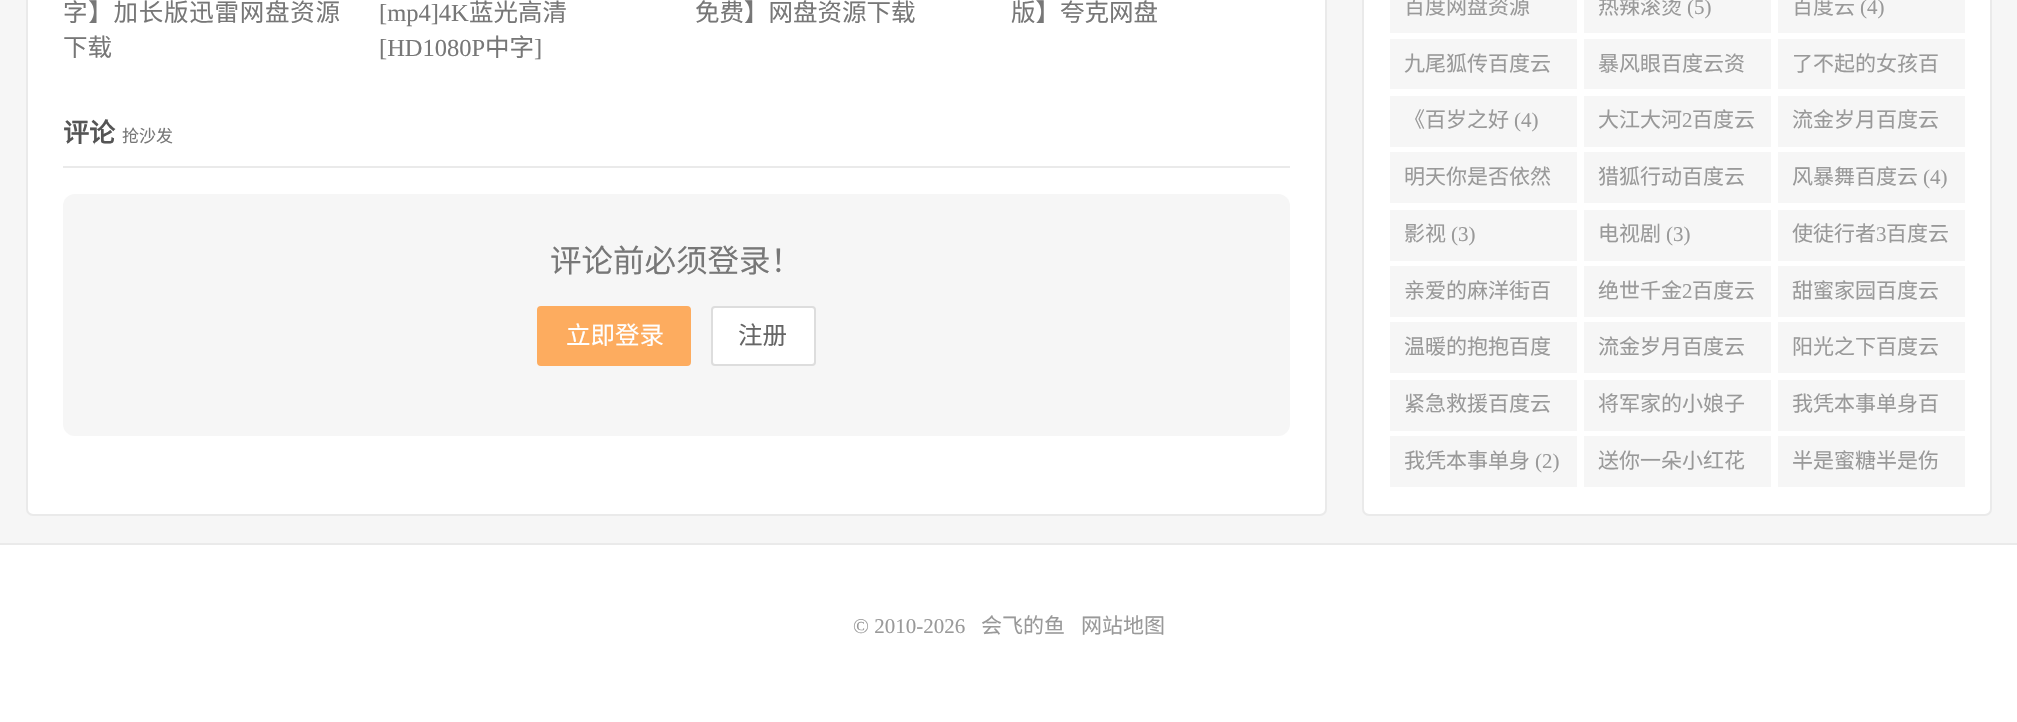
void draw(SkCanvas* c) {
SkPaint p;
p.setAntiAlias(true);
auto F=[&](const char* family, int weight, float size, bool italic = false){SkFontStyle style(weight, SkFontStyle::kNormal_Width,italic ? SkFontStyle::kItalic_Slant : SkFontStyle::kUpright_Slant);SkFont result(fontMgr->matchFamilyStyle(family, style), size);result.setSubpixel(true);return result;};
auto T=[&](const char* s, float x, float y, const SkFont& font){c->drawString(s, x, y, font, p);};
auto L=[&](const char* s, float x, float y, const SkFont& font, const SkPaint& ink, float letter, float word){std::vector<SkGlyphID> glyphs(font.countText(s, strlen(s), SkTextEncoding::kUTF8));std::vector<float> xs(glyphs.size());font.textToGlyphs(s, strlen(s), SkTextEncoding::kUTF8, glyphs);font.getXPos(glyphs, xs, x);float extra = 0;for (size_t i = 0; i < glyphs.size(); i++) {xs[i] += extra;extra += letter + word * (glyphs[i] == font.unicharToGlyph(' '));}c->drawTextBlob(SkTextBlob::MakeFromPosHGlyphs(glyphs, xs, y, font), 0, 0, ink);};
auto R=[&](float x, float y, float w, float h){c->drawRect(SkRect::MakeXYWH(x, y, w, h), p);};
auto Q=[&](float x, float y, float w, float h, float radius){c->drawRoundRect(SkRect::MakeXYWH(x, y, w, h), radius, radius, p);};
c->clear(0xfff6f6f6);
p.setColor(0xffffffff);
c->drawRoundRect(SkRect::MakeXYWH(27,-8,1299,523),6,6,p);
p.setStroke(true);
p.setStrokeWidth(2);
p.setColor(0xffeaeaea);
c->drawRoundRect(SkRect::MakeXYWH(27,-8,1299,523),6,6,p);
auto f1 = F("Noto Sans CJK SC",400,24.5);
p.setStroke(false);
p.setColor(0xff777777);
L("字】加长版迅雷网盘资源",63,21,f1,p,.75,0);
T("下载",63,56,f1);
auto f2 = F("Liberation Serif",400,24.5);
T("[mp4]4K",379,21,f2);
T("蓝光高清",469,21,f1);
T("[HD1080P",379,56,f2);
T("中字",485,56,f1);
T("]",534,56,f2);
T("免费】网盘资源下载",695,21,f1);
T("版】夸克网盘",1011,21,f1);
p.setColor(0xffeaeaea);
R(63,166,1227,2);
auto f3 = F("Noto Sans CJK SC",700,26);
p.setColor(0xff555555);
T("评论",63,142,f3);
auto f4 = F("Noto Sans CJK SC",400,17);
p.setColor(0xff777777);
T("抢沙发",122,142,f4);
p.setColor(0xfff6f6f6);
Q(63,194,1227,242,12);
auto f5 = F("Noto Sans CJK SC",400,31.5);
p.setColor(0xff777777);
T("评论前必须登录！",550,272,f5);
p.setColor(0xfffdac5f);
c->drawRoundRect(SkRect::MakeXYWH(538,307,152,58),3,3,p);
p.setStroke(true);
c->drawRoundRect(SkRect::MakeXYWH(538,307,152,58),3,3,p);
p.setStroke(false);
p.setColor(0xffffffff);
T("立即登录",566,344,f1);
c->drawRoundRect(SkRect::MakeXYWH(712,307,103,58),3,3,p);
p.setStroke(true);
p.setColor(0xffdddddd);
c->drawRoundRect(SkRect::MakeXYWH(712,307,103,58),3,3,p);
p.setStroke(false);
p.setColor(0xff666666);
T("注册",738,344,f1);
p.setColor(0xffffffff);
c->drawRoundRect(SkRect::MakeXYWH(1363,-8,628,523),6,6,p);
p.setStroke(true);
p.setColor(0xffeaeaea);
c->drawRoundRect(SkRect::MakeXYWH(1363,-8,628,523),6,6,p);
p.setStroke(false);
p.setColor(0xfff6f6f6);
R(1390,0,187,33);
auto f6 = F("Noto Sans CJK SC",400,21);
p.setColor(0xff999999);
T("百度网盘资源",1404,14,f6);
p.setColor(0xfff6f6f6);
R(1584,0,187,33);
p.setColor(0xff999999);
T("热辣滚烫",1598,14,f6);
auto f7 = F("Liberation Serif",400,21);
T("(5)",1687,14,f7);
p.setColor(0xfff6f6f6);
R(1778,0,187,33);
p.setColor(0xff999999);
T("百度云",1792,14,f6);
T("(4)",1860,14,f7);
p.setColor(0xfff6f6f6);
R(1390,39,187,50);
p.setColor(0xff999999);
T("九尾狐传百度云",1404,71,f6);
p.setColor(0xfff6f6f6);
R(1584,39,187,50);
p.setColor(0xff999999);
T("暴风眼百度云资",1598,71,f6);
p.setColor(0xfff6f6f6);
R(1778,39,187,50);
p.setColor(0xff999999);
T("了不起的女孩百",1792,71,f6);
p.setColor(0xfff6f6f6);
R(1390,96,187,51);
p.setColor(0xff999999);
T("《百岁之好",1404,127,f6);
T("(4)",1514,127,f7);
p.setColor(0xfff6f6f6);
R(1584,96,187,51);
p.setColor(0xff999999);
T("大江大河",1598,127,f6);
T("2",1682,127,f7);
T("百度云",1692,127,f6);
p.setColor(0xfff6f6f6);
R(1778,96,187,51);
p.setColor(0xff999999);
T("流金岁月百度云",1792,127,f6);
p.setColor(0xfff6f6f6);
R(1390,152,187,51);
p.setColor(0xff999999);
T("明天你是否依然",1404,184,f6);
p.setColor(0xfff6f6f6);
R(1584,152,187,51);
p.setColor(0xff999999);
T("猎狐行动百度云",1598,184,f6);
p.setColor(0xfff6f6f6);
R(1778,152,187,51);
p.setColor(0xff999999);
T("风暴舞百度云",1792,184,f6);
T("(4)",1923,184,f7);
p.setColor(0xfff6f6f6);
R(1390,210,187,51);
p.setColor(0xff999999);
T("影视",1404,241,f6);
T("(3)",1451,241,f7);
p.setColor(0xfff6f6f6);
R(1584,210,187,51);
p.setColor(0xff999999);
T("电视剧",1598,241,f6);
T("(3)",1666,241,f7);
p.setColor(0xfff6f6f6);
R(1778,210,187,51);
p.setColor(0xff999999);
T("使徒行者",1792,241,f6);
T("3",1876,241,f7);
T("百度云",1886,241,f6);
p.setColor(0xfff6f6f6);
R(1390,266,187,51);
p.setColor(0xff999999);
T("亲爱的麻洋街百",1404,298,f6);
p.setColor(0xfff6f6f6);
R(1584,266,187,51);
p.setColor(0xff999999);
T("绝世千金",1598,298,f6);
T("2",1682,298,f7);
T("百度云",1692,298,f6);
p.setColor(0xfff6f6f6);
R(1778,266,187,51);
p.setColor(0xff999999);
T("甜蜜家园百度云",1792,298,f6);
p.setColor(0xfff6f6f6);
R(1390,322,187,51);
p.setColor(0xff999999);
T("温暖的抱抱百度",1404,354,f6);
p.setColor(0xfff6f6f6);
R(1584,322,187,51);
p.setColor(0xff999999);
T("流金岁月百度云",1598,354,f6);
p.setColor(0xfff6f6f6);
R(1778,322,187,51);
p.setColor(0xff999999);
T("阳光之下百度云",1792,354,f6);
p.setColor(0xfff6f6f6);
R(1390,380,187,51);
p.setColor(0xff999999);
T("紧急救援百度云",1404,411,f6);
p.setColor(0xfff6f6f6);
R(1584,380,187,51);
p.setColor(0xff999999);
T("将军家的小娘子",1598,411,f6);
p.setColor(0xfff6f6f6);
R(1778,380,187,51);
p.setColor(0xff999999);
T("我凭本事单身百",1792,411,f6);
p.setColor(0xfff6f6f6);
R(1390,436,187,51);
p.setColor(0xff999999);
T("我凭本事单身",1404,468,f6);
T("(2)",1535,468,f7);
p.setColor(0xfff6f6f6);
R(1584,436,187,51);
p.setColor(0xff999999);
T("送你一朵小红花",1598,468,f6);
p.setColor(0xfff6f6f6);
R(1778,436,187,51);
p.setColor(0xff999999);
T("半是蜜糖半是伤",1792,468,f6);
p.setColor(0xffffffff);
R(0,545,2017,177);
p.setColor(0xffeaeaea);
R(0,543,2017,2);
p.setColor(0xff999999);
T("© 2010-2026",853,633,f7);
T("会飞的鱼",981,633,f6);
T("网站地图",1081,633,f6);
}
